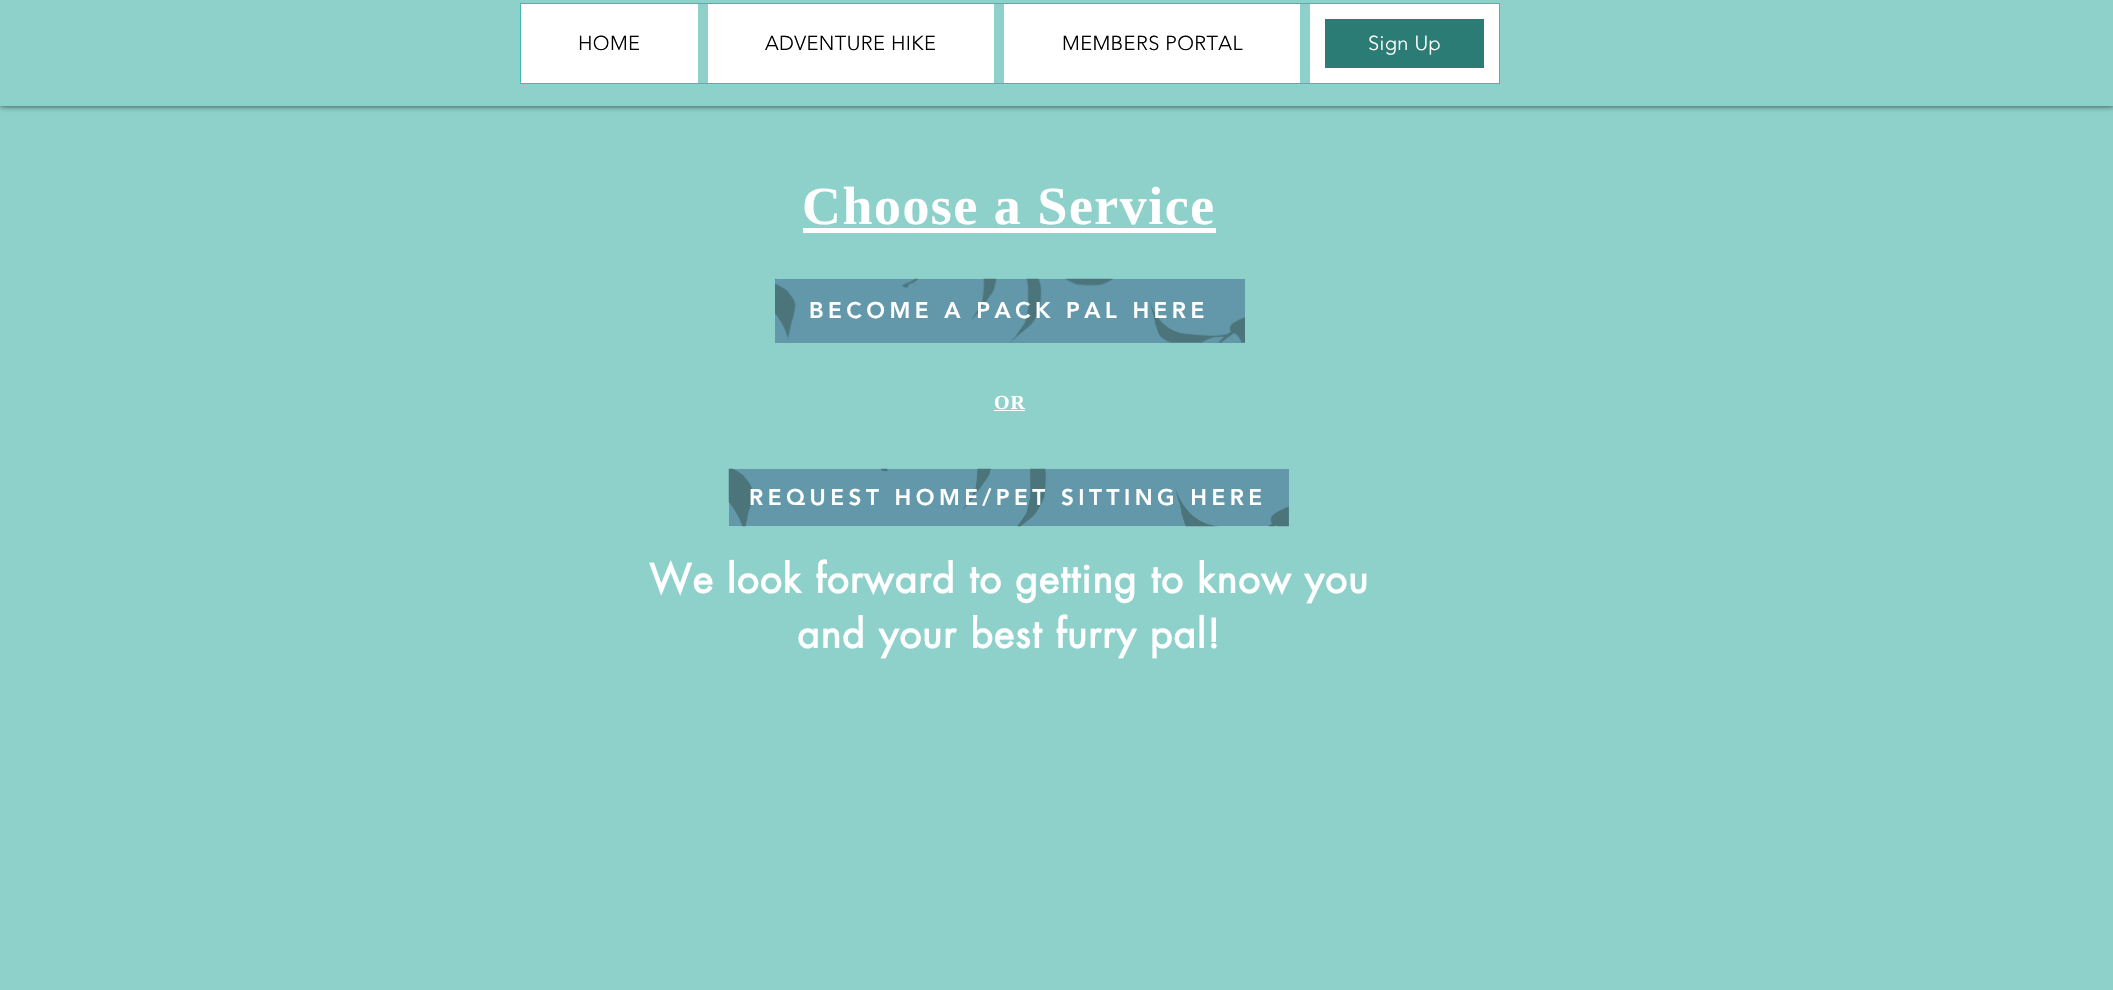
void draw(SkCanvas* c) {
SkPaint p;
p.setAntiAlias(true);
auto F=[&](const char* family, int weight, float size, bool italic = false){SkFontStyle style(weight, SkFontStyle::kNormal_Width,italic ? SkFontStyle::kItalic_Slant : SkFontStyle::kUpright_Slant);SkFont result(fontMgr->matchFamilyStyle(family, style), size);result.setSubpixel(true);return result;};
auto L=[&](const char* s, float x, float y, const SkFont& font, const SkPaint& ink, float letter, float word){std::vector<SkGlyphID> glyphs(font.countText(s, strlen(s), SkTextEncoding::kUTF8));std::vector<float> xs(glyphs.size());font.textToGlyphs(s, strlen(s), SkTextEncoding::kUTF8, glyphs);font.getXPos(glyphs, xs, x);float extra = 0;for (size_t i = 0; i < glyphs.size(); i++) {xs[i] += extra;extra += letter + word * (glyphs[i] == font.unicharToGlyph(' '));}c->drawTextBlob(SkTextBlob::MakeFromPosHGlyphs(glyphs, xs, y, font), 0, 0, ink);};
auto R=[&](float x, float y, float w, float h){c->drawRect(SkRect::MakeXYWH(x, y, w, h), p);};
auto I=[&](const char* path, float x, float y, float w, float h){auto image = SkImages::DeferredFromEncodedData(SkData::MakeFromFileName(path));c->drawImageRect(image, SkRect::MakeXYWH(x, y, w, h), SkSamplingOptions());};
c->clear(0xff8dd1ca);
p.setColor(0xb3000000);
p.setMaskFilter(SkMaskFilter::MakeBlur(kNormal_SkBlurStyle, 3));
c->drawRect(SkRect::MakeXYWH(0,0,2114,106),p);
p.setMaskFilter(nullptr);
p.setColor(0xff8dd1ca);
R(0,0,2113,106);
p.setStroke(true);
p.setStrokeWidth(1);
p.setColor(0xff41baae);
c->drawRect(SkRect::MakeXYWH(520.5,3.5,979,80),p);
p.setStroke(false);
p.setColor(0xffffffff);
R(521,4,177,79);
auto f1 = F("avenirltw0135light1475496",300,20);
p.setColor(0xff000000);
L("HOME",578,50,f1,p,.4,0);
p.setColor(0xffffffff);
R(708,4,286,79);
p.setColor(0xff000000);
L("ADVENTURE HIKE",765,50,f1,p,.4,0);
p.setColor(0xffffffff);
R(1004,4,296,79);
p.setColor(0xff000000);
L("MEMBERS PORTAL",1062,50,f1,p,.4,0);
p.setColor(0xff2b7c74);
c->drawRect(SkRect::MakeXYWH(1317.5,11.5,174,64),p);
p.setStroke(true);
p.setStrokeWidth(15);
p.setColor(0xffffffff);
c->drawRect(SkRect::MakeXYWH(1317.5,11.5,174,64),p);
p.setStroke(false);
L("Sign Up",1368,50,f1,p,.4,0);
auto f2 = F("Liberation Serif",700,53.75);
L("Choose a Service",802,224,f2,p,1.6,0);
R(803,228,413,5);
p.setColor(0xff6298aa);
R(775,279,470,64);
I("1.png",775,278,470,65);
auto f3 = F("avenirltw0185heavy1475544",900,22.5);
p.setColor(0xffffffff);
L("BECOME A PACK PAL HERE",809,318,f3,p,4.5,0);
auto f4 = F("Liberation Serif",700,20);
L("OR",994,409,f4,p,1,0);
R(994,410,31,1);
p.setColor(0xff6298aa);
R(729,469,560,57);
I("2.png",728,468,561,59);
p.setColor(0xffffffff);
L("REQUEST HOME/PET SITTING HERE",749,505,f3,p,4.5,0);
auto f5 = F("futura",700,38.75);
L("We look forward to getting to know you",649,593,f5,p,1.15,0);
L("and your best furry pal!",797,648,f5,p,1.15,0);
}
